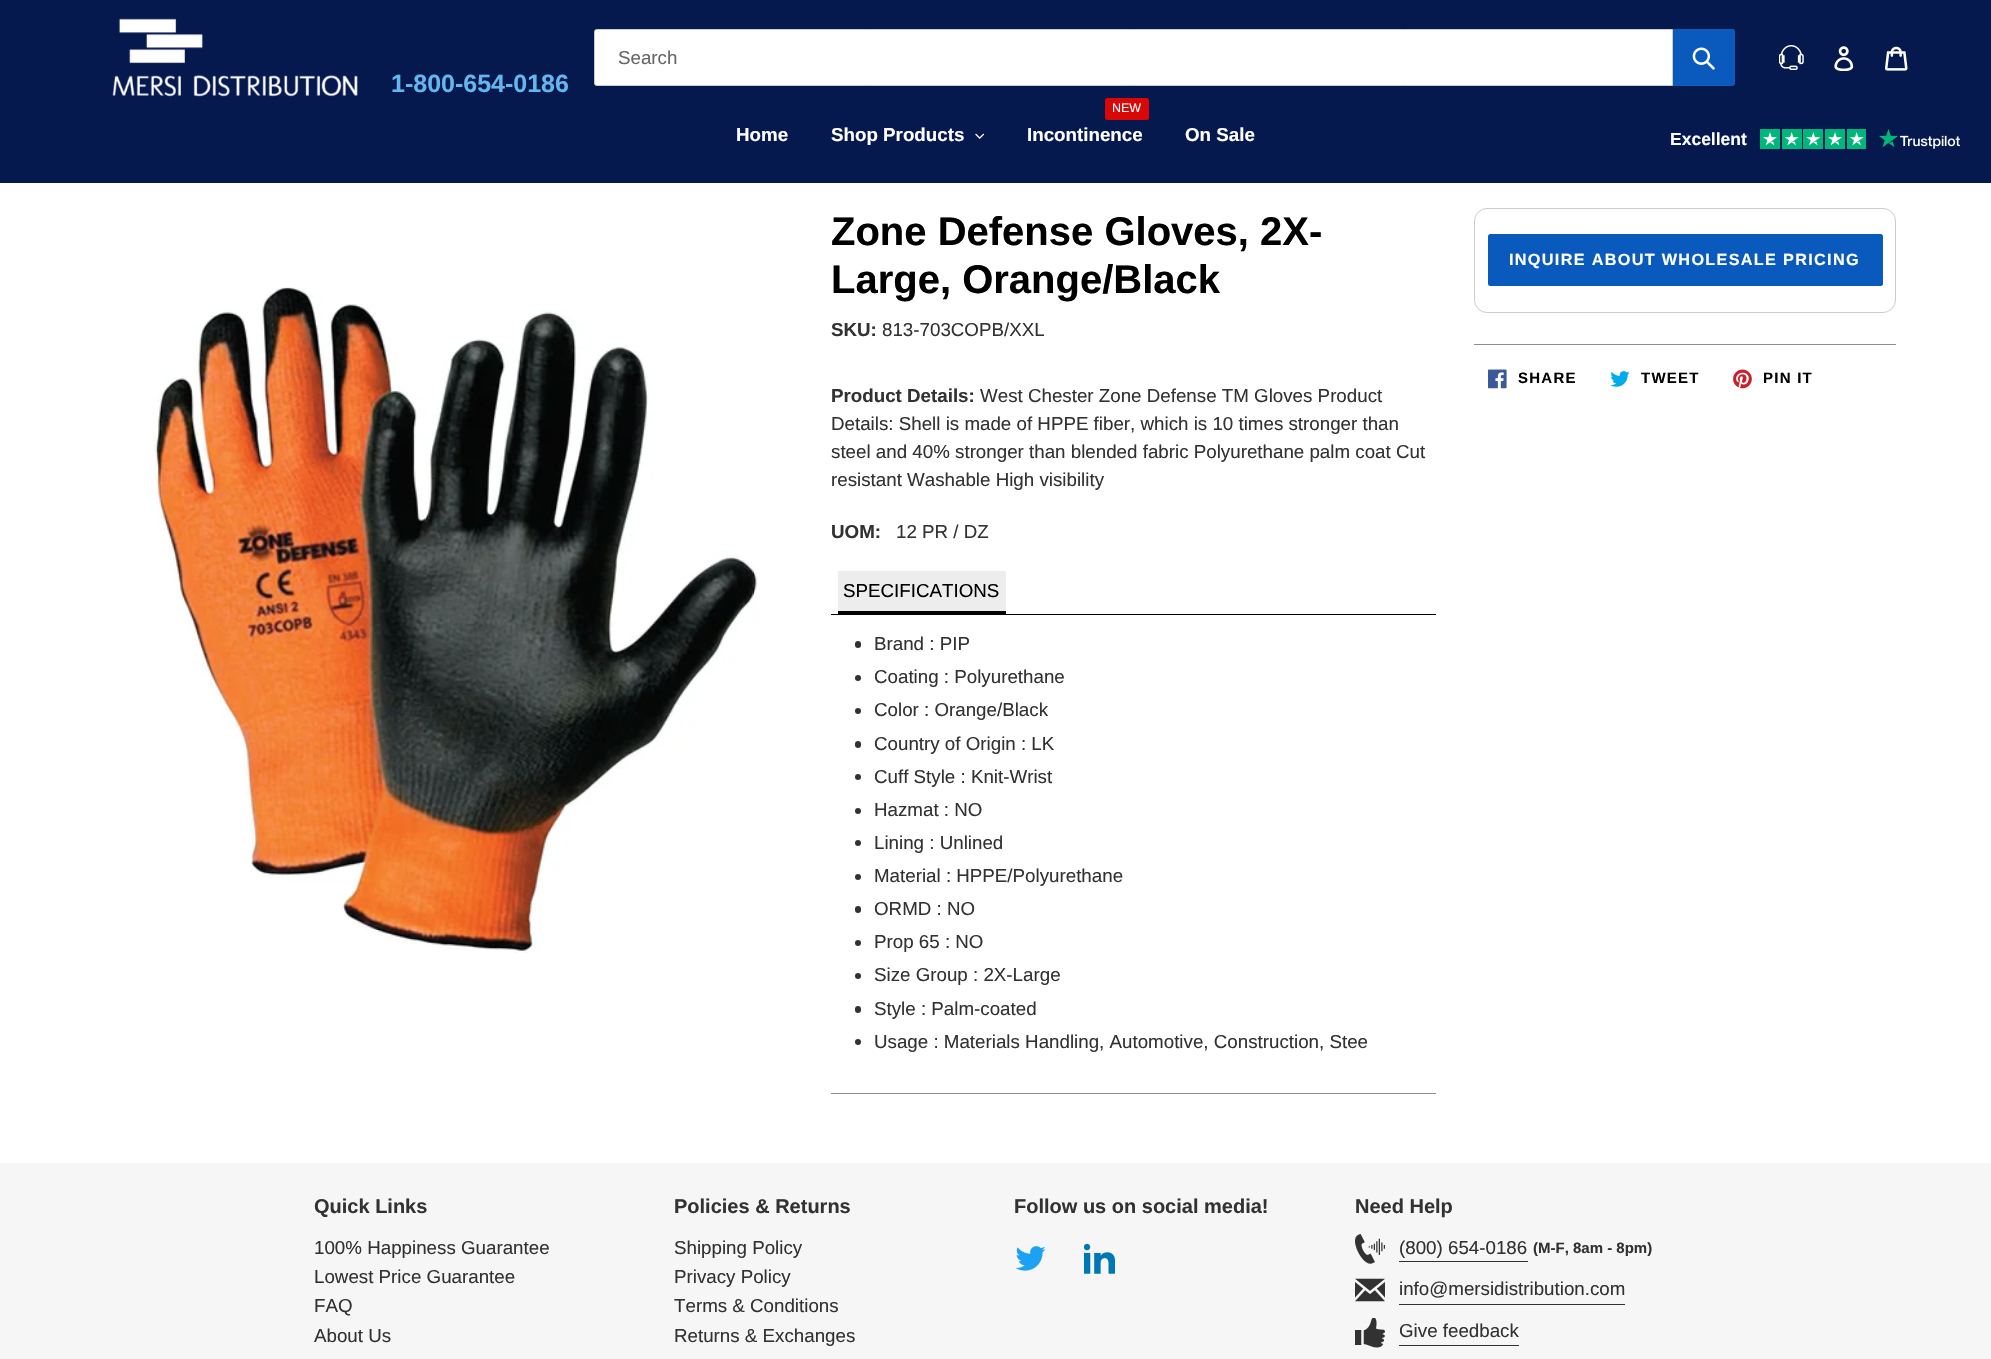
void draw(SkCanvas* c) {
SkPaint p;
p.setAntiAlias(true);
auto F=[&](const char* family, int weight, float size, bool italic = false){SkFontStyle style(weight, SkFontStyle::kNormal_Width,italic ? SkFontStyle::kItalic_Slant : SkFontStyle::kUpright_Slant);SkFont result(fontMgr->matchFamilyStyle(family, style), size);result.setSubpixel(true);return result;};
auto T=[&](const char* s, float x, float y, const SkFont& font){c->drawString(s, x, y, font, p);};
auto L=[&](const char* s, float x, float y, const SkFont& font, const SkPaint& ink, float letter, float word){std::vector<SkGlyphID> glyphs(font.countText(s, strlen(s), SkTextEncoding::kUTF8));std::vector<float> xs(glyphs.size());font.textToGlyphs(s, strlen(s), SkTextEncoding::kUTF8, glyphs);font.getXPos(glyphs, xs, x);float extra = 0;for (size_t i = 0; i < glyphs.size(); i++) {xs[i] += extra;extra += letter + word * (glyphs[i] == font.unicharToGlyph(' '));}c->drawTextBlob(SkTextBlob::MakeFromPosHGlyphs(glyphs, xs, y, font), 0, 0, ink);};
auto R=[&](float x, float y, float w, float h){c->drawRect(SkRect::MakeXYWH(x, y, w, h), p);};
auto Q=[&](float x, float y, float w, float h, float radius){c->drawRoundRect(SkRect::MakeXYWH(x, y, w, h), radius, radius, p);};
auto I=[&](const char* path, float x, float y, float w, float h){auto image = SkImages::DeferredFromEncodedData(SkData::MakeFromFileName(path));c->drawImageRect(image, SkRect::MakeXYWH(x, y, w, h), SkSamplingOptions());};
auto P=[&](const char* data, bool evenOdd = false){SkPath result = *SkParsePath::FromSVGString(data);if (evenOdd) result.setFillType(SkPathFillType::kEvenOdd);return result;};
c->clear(0xffffffff);
p.setColor(0xff06194e);
R(0,0,1991,183);
p.setColor(0xffffffff);
c->drawPath(P("M596.5 29.5h1076v56h-1076c-1 0-2-1-2-2v-52c0-1 1-2 2-2z"),p);
p.setStroke(true);
p.setStrokeWidth(1);
p.setColor(0xffcccccc);
c->drawPath(P("M596.5 29.5h1076v56h-1076c-1 0-2-1-2-2v-52c0-1 1-2 2-2z"),p);
auto f1 = F("Liberation Sans",400,18.75);
p.setStroke(false);
p.setColor(0xff666666);
T("Search",618,64,f1);
p.setColor(0xff0a5abd);
c->drawPath(P("M1673 29h59.5c1.5 0 2.5 1 2.5 2.5v52c0 1.5-1 2.5-2.5 2.5h-59.5z"),p);
I("1.png",1692,47,23,23);
I("2.png",1779,45,25,25);
I("3.png",1834,46,20,25);
I("4.png",1885,46,23,25);
I("5.png",112,18,246,79);
auto f2 = F("Liberation Sans",700,25);
p.setColor(0xff63b7ef);
T("1-800-654-0186",391,92,f2);
auto f3 = F("Liberation Sans",700,17.5);
p.setColor(0xffffffff);
T("Excellent",1670,145,f3);
I("6.png",1760,129,106,20);
I("7.png",1879,129,81,20);
auto f4 = F("Liberation Sans",700,18.75);
T("Home",736,141,f4);
T("Shop Products",831,141,f4);
I("8.png",975,133,9,6);
p.setColor(0xffda0707);
Q(1105,98,44,22,2.5);
auto f5 = F("Liberation Sans",400,12.5);
p.setColor(0xffffffff);
T("NEW",1112,112,f5);
T("Incontinence",1027,141,f4);
T("On Sale",1185,141,f4);
I("9.png",153,287,605,666);
auto f6 = F("Liberation Sans",700,40);
p.setColor(0xff000000);
T("Zone Defense Gloves, 2X-",831,245,f6);
T("Large, Orange/Black",831,293,f6);
p.setColor(0xff333232);
T("SKU:",831,336,f4);
T("813-703COPB/XXL",882,336,f1);
T("Product Details:",831,402,f4);
T("West Chester Zone Defense TM Gloves Product",980,402,f1);
T("Details: Shell is made of HPPE fiber, which is 10 times stronger than",831,430,f1);
T("steel and 40% stronger than blended fabric Polyurethane palm coat Cut",831,458,f1);
T("resistant Washable High visibility",831,486,f1);
T("UOM:",831,538,f4);
T("12 PR / DZ",896,538,f1);
p.setColor(0xff000000);
R(831,614,605,1);
p.setColor(0xffededed);
R(838,571,168,40);
p.setColor(0xff000000);
R(838,611,168,3);
T("SPECIFICATIONS",843,597,f1);
p.setColor(0xff8e8e8e);
R(831,1093,605,1);
p.setColor(0xff333232);
Q(855,641,6,7,3);
T("Brand : PIP",874,650,f1);
c->drawCircle(858,678,3,p);
T("Coating : Polyurethane",874,683,f1);
c->drawCircle(858,711,3,p);
T("Color : Orange/Black",874,716,f1);
Q(855,741,6,7,3);
T("Country of Origin : LK",874,750,f1);
c->drawCircle(858,777,3,p);
T("Cuff Style : Knit-Wrist",874,783,f1);
c->drawCircle(858,811,3,p);
T("Hazmat : NO",874,816,f1);
c->drawCircle(858,843,3,p);
T("Lining : Unlined",874,849,f1);
c->drawCircle(858,877,3,p);
T("Material : HPPE/Polyurethane",874,882,f1);
Q(855,906,6,7,3);
T("ORMD : NO",874,915,f1);
c->drawCircle(858,943,3,p);
T("Prop 65 : NO",874,948,f1);
c->drawCircle(858,976,3,p);
T("Size Group : 2X-Large",874,981,f1);
Q(855,1006,6,7,3);
T("Style : Palm-coated",874,1015,f1);
c->drawCircle(858,1042,3,p);
T("Usage : Materials Handling, Automotive, Construction, Stee",874,1048,f1);
p.setStroke(true);
p.setColor(0xffcccccc);
c->drawRoundRect(SkRect::MakeXYWH(1474.5,208.5,421,104),12.5,12.5,p);
p.setStroke(false);
p.setColor(0xff0a5abd);
Q(1488,234,395,52,2.5);
auto f7 = F("Liberation Sans",700,16.25);
p.setColor(0xffffffff);
L("INQUIRE ABOUT WHOLESALE PRICING",1509,265,f7,p,1.3,0);
p.setColor(0xff8e8e8e);
R(1474,344,422,1);
I("10.png",1488,369,19,20);
auto f8 = F("Liberation Sans",700,15);
p.setColor(0xff000000);
L("SHARE",1518,383,f8,p,1.25,0);
I("11.png",1610,371,20,16);
L("TWEET",1641,383,f8,p,1.25,0);
I("12.png",1733,369,19,20);
L("PIN IT",1763,383,f8,p,1.25,0);
p.setColor(0xfff6f6f6);
R(0,1163,1991,196);
auto f9 = F("Liberation Sans",700,20);
p.setColor(0xff333232);
T("Quick Links",314,1213,f9);
T("100% Happiness Guarantee",314,1254,f1);
T("Lowest Price Guarantee",314,1283,f1);
T("FAQ",314,1312,f1);
T("About Us",314,1342,f1);
T("Policies & Returns",674,1213,f9);
T("Shipping Policy",674,1254,f1);
T("Privacy Policy",674,1283,f1);
T("Terms & Conditions",674,1312,f1);
T("Returns & Exchanges",674,1342,f1);
T("Follow us on social media!",1014,1213,f9);
I("13.png",1015,1246,31,25);
I("14.png",1084,1243,31,31);
T("Need Help",1355,1213,f9);
I("15.png",1355,1234,30,30);
R(1399,1261,129,1);
T("(800) 654-0186",1399,1254,f1);
T("(M-F, 8am - 8pm)",1533,1253,f8);
I("16.png",1355,1278,30,24);
R(1399,1304,226,1);
T("info@mersidistribution.com",1399,1295,f1);
I("17.png",1355,1318,30,30);
R(1399,1345,120,1);
T("Give feedback",1399,1337,f1);
}
